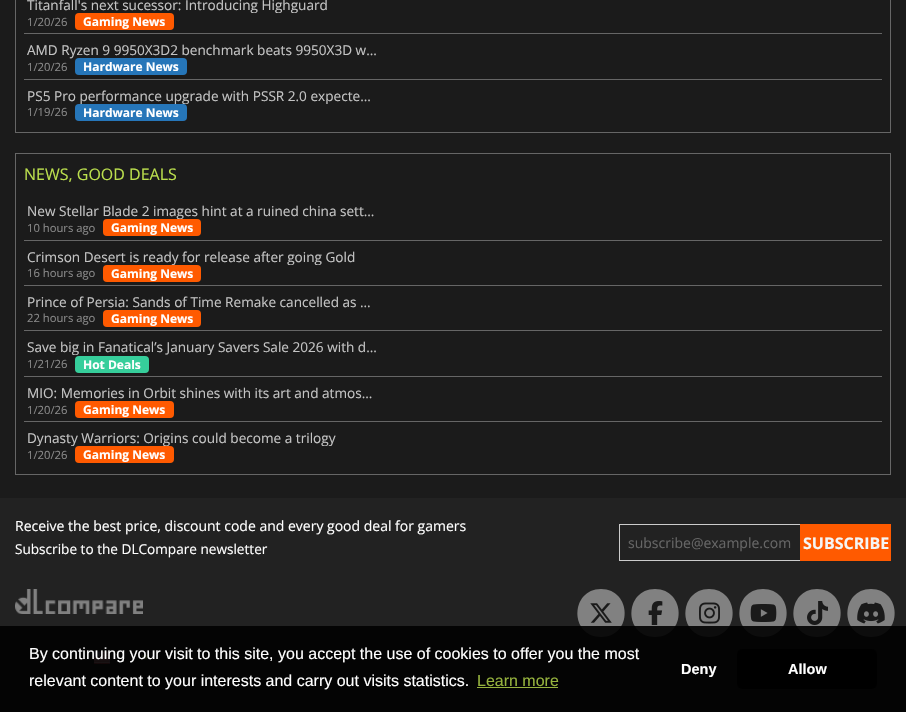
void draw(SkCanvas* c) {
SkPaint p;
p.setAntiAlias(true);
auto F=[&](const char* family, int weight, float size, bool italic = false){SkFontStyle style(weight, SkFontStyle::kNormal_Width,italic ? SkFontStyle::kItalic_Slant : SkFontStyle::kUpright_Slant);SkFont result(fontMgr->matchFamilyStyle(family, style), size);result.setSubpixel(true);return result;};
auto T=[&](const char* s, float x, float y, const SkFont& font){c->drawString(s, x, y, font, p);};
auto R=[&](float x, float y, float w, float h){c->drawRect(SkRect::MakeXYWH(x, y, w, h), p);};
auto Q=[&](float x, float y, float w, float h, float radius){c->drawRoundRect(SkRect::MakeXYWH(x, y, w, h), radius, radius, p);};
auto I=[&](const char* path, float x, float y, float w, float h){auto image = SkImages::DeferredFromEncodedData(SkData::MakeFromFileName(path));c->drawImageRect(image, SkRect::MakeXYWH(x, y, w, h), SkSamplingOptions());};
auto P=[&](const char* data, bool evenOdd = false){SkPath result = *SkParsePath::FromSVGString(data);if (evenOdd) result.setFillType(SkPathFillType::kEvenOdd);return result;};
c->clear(0xff1b1b1b);
p.setColor(0xff666666);
R(15,0,876,133);
p.setColor(0xff1b1b1b);
R(16,0,874,132);
p.setColor(0xff666666);
R(24,33,858,1);
c->save();
c->clipRect(SkRect::MakeXYWH(27,0,350,13));
auto f1 = F("Open Sans",400,13.6);
p.setColor(0xffc4c4c4);
T("Titanfall's next sucessor: Introducing Highguard",27,10,f1);
c->restore();
auto f2 = F("Open Sans",400,11.25);
p.setColor(0xff888888);
T("1/20/26",27,26,f2);
p.setColor(0xffff5a00);
Q(75,13,99,17,4);
auto f3 = F("Open Sans",700,12);
p.setColor(0xffffffff);
T("Gaming News",83,26,f3);
p.setColor(0xff666666);
R(24,79,858,1);
p.setColor(0xffc4c4c4);
T("AMD Ryzen 9 9950X3D2 benchmark beats 9950X3D w…",27,55,f1);
p.setColor(0xff888888);
T("1/20/26",27,71,f2);
p.setColor(0xff2676b9);
Q(75,58,112,17,4);
p.setColor(0xffffffff);
T("Hardware News",83,71,f3);
c->save();
c->clipRect(SkRect::MakeXYWH(27,88,350,16));
p.setColor(0xffc4c4c4);
T("PS5 Pro performance upgrade with PSSR 2.0 expecte…",27,101,f1);
c->restore();
p.setColor(0xff888888);
T("1/19/26",27,116,f2);
p.setColor(0xff2676b9);
Q(75,104,112,17,4);
p.setColor(0xffffffff);
T("Hardware News",83,117,f3);
p.setColor(0xff666666);
R(15,153,876,322);
p.setColor(0xff1b1b1b);
R(16,154,874,320);
auto f4 = F("Open Sans",400,16);
p.setColor(0xffbbdf4d);
T("NEWS, GOOD DEALS",24,180,f4);
p.setColor(0xff666666);
R(24,240,858,1);
c->save();
c->clipRect(SkRect::MakeXYWH(27,203,350,16));
p.setColor(0xffc4c4c4);
T("New Stellar Blade 2 images hint at a ruined china sett…",27,216,f1);
c->restore();
p.setColor(0xff888888);
T("10 hours ago",27,232,f2);
p.setColor(0xffff5a00);
Q(103,219,98,17,4);
p.setColor(0xffffffff);
T("Gaming News",111,232,f3);
p.setColor(0xff666666);
R(24,285,858,1);
c->save();
c->clipRect(SkRect::MakeXYWH(27,249,350,16));
p.setColor(0xffc4c4c4);
T("Crimson Desert is ready for release after going Gold",27,262,f1);
c->restore();
p.setColor(0xff888888);
T("16 hours ago",27,277,f2);
p.setColor(0xffff5a00);
Q(103,265,98,17,4);
p.setColor(0xffffffff);
T("Gaming News",111,278,f3);
p.setColor(0xff666666);
R(24,330,858,1);
p.setColor(0xffc4c4c4);
T("Prince of Persia: Sands of Time Remake cancelled as …",27,307,f1);
p.setColor(0xff888888);
T("22 hours ago",27,322,f2);
p.setColor(0xffff5a00);
Q(103,310,98,17,4);
p.setColor(0xffffffff);
T("Gaming News",111,323,f3);
p.setColor(0xff666666);
R(24,376,858,1);
c->save();
c->clipRect(SkRect::MakeXYWH(27,339,350,16));
p.setColor(0xffc4c4c4);
T("Save big in Fanatical’s January Savers Sale 2026 with d…",27,352,f1);
c->restore();
p.setColor(0xff888888);
T("1/21/26",27,368,f2);
p.setColor(0xff36ce9b);
Q(75,356,74,17,4);
p.setColor(0xffffffff);
T("Hot Deals",83,369,f3);
p.setColor(0xff666666);
R(24,421,858,1);
p.setColor(0xffc4c4c4);
T("MIO: Memories in Orbit shines with its art and atmos…",27,398,f1);
p.setColor(0xff888888);
T("1/20/26",27,414,f2);
p.setColor(0xffff5a00);
Q(75,401,99,17,4);
p.setColor(0xffffffff);
T("Gaming News",83,414,f3);
c->save();
c->clipRect(SkRect::MakeXYWH(27,430,350,16));
p.setColor(0xffc4c4c4);
T("Dynasty Warriors: Origins could become a trilogy",27,443,f1);
c->restore();
p.setColor(0xff888888);
T("1/20/26",27,459,f2);
p.setColor(0xffff5a00);
Q(75,446,99,17,4);
p.setColor(0xffffffff);
T("Gaming News",83,459,f3);
p.setColor(0xff222222);
R(0,498,906,214);
auto f5 = F("Open Sans",400,14);
p.setColor(0xffffffff);
T("Receive the best price, discount code and every good deal for gamers",15,531,f5);
T("Subscribe to the DLCompare newsletter",15,554,f1);
p.setColor(0xffcccccc);
R(619,524,181,1);
R(619,560,181,1);
R(619,524,1,37);
p.setColor(0xff666666);
T("subscribe@example.com",628,548,f5);
p.setColor(0xffff5a00);
R(800,524,91,37);
auto f6 = F("Open Sans",700,16);
p.setColor(0xfff5f5f5);
T("SUBSCRIBE",803,549,f6);
I("1.png",15,589,128,25);
I("2.png",94,651,16,13);
I("3.png",142,655,8,5);
p.setColor(0xff818181);
c->drawPath(P("M601 637c32 0 31-48 0-48c-31 0-32 48 0 48z"),p);
I("4.png",590,603,22,20);
c->drawPath(P("M655 637c32 0 31-48 0-48c-31 0-32 48 0 48z"),p);
I("5.png",648,601,15,24);
c->drawPath(P("M709 637c32 0 31-48 0-48c-31 0-32 48 0 48z"),p);
I("6.png",699,602,21,22);
c->drawPath(P("M763 637c32 0 31-48 0-48c-31 0-32 48 0 48z"),p);
I("7.png",750,604,27,18);
c->drawPath(P("M817 637c32 0 31-48 0-48c-31 0-32 48 0 48z"),p);
I("8.png",807,601,21,24);
c->drawPath(P("M871 637c32 0 31-48 0-48c-31 0-32 48 0 48z"),p);
I("9.png",857,602,28,22);
p.setColor(0xe6000000);
R(0,626,906,86);
auto f7 = F("Liberation Sans",400,16);
p.setColor(0xffffffff);
T("By continuing your visit to this site, you accept the use of cookies to offer you the most",29,659,f7);
T("relevant content to your interests and carry out visits statistics.",29,686,f7);
p.setColor(0xff96b33e);
T("Learn more",477,686,f7);
R(477,687,81,1);
auto f8 = F("Liberation Sans",700,14.5);
p.setColor(0xffffffff);
T("Deny",681,674,f8);
p.setColor(0xff000000);
Q(737,649,140,40,5);
p.setColor(0xffffffff);
T("Allow",788,674,f8);
}
